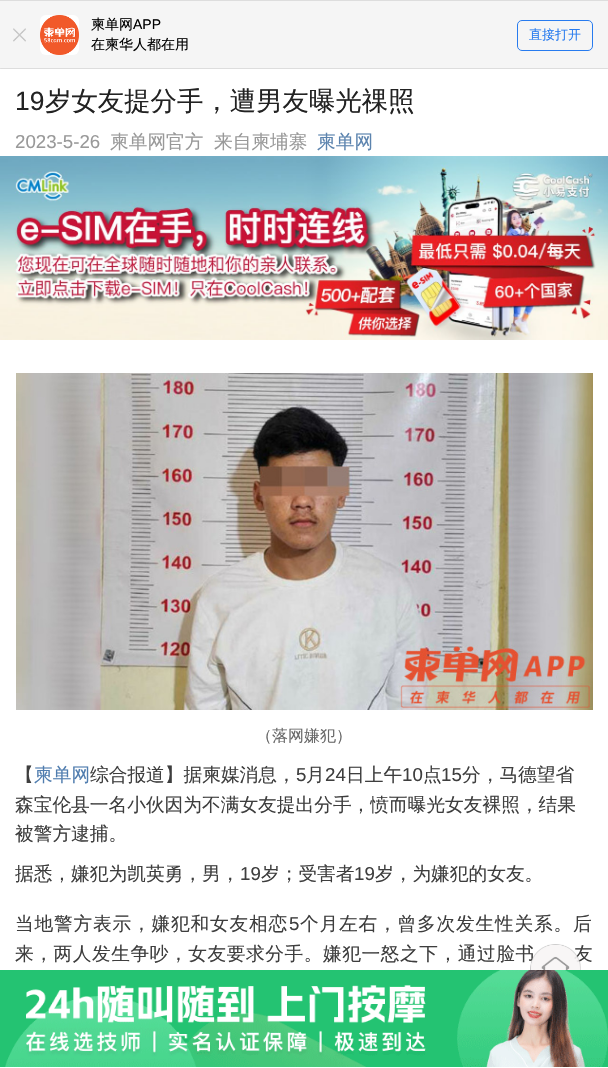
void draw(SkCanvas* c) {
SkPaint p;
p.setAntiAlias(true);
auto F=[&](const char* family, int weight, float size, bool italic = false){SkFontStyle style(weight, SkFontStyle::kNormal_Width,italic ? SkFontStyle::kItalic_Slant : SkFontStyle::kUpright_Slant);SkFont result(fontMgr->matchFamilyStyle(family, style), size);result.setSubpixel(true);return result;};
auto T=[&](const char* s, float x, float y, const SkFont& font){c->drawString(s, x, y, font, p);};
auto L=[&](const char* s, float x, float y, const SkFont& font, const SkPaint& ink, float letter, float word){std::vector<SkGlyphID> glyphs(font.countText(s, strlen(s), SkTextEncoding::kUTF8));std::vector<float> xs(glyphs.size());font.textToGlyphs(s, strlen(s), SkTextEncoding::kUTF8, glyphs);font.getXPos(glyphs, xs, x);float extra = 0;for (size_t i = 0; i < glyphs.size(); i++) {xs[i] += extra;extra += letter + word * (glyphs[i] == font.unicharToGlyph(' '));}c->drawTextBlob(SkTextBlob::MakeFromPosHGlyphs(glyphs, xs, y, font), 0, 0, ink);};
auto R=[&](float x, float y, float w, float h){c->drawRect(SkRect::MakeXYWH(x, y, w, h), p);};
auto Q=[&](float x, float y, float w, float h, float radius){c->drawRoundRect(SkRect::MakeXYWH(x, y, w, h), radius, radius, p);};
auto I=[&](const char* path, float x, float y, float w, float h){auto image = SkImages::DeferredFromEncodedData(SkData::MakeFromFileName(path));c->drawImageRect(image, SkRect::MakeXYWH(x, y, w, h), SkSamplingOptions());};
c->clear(0xffffffff);
p.setColor(0xfff5f5f5);
R(0,1,608,68);
p.setColor(0xffdddddd);
R(0,0,608,1);
I("1.png",13,28,13,14);
I("2.png",40,15,39,40);
auto f1 = F("WenQuanYi Zen Hei",500,14);
p.setColor(0xff000000);
T("柬单网",91,29,f1);
auto f2 = F("Liberation Sans",400,14);
T("APP",133,29,f2);
T("在柬华人都在用",91,49,f1);
p.setStroke(true);
p.setStrokeWidth(1);
p.setColor(0xff277bef);
c->drawRoundRect(SkRect::MakeXYWH(517.5,20.5,75,30),4.5,4.5,p);
auto f3 = F("WenQuanYi Zen Hei",500,13);
p.setStroke(false);
T("直接打开",529,39,f3);
p.setColor(0xffdddddd);
Q(0,68,608,1,.5);
auto f4 = F("Liberation Sans",400,26.4);
p.setColor(0xff222222);
T("19",15,110,f4);
auto f5 = F("WenQuanYi Zen Hei",500,26.4);
T("岁女友提分手，遭男友曝光祼照",45,110,f5);
auto f6 = F("Liberation Sans",400,18.7);
p.setColor(0xff999999);
T("2023-5-26",15,148,f6);
auto f7 = F("WenQuanYi Zen Hei",500,18.7);
T("柬单网官方",110,148,f7);
T("来自柬埔寨",214,148,f7);
p.setColor(0xff5b83ae);
T("柬单网",317,148,f7);
I("3.png",0,156,608,184);
I("4.png",16,373,577,337);
auto f8 = F("WenQuanYi Zen Hei",500,16);
p.setColor(0xff696969);
T("（落网嫌犯）",256,741,f8);
p.setColor(0xff3e3e3e);
T("【",15,781,f7);
p.setColor(0xff507daf);
T("柬单网",34,781,f7);
p.setColor(0xff3e3e3e);
T("综合报道】据柬媒消息，",90,781,f7);
T("5",296,781,f6);
T("月",306,781,f7);
T("24",325,781,f6);
T("日上午",346,781,f7);
T("10",402,781,f6);
T("点",423,781,f7);
T("15",441,781,f6);
T("分，马德望省",462,781,f7);
T("森宝伦县一名小伙因为不满女友提出分手，愤而曝光女友裸照，结果",15,811,f7);
T("被警方逮捕。",15,840,f7);
T("据悉，嫌犯为凯英勇，男，",15,880,f7);
T("19",240,880,f6);
T("岁；受害者",261,880,f7);
T("19",354,880,f6);
T("岁，为嫌犯的女友。",375,880,f7);
L("当地警方表示，嫌犯和女友相恋",15,930,f7,p,.8,0);
L("5",289,930,f6,p,.8,0);
L("个月左右，曾多次发生性关系。后",300,930,f7,p,.8,0);
L("来，两人发生争吵，女友要求分手。嫌犯一怒之下，通过脸书",15,960,f7,p,.55,0);
L("友",574,960,f7,p,.55,0);
I("5.png",0,970,608,97);
I("6.png",530,944,51,26);
}
